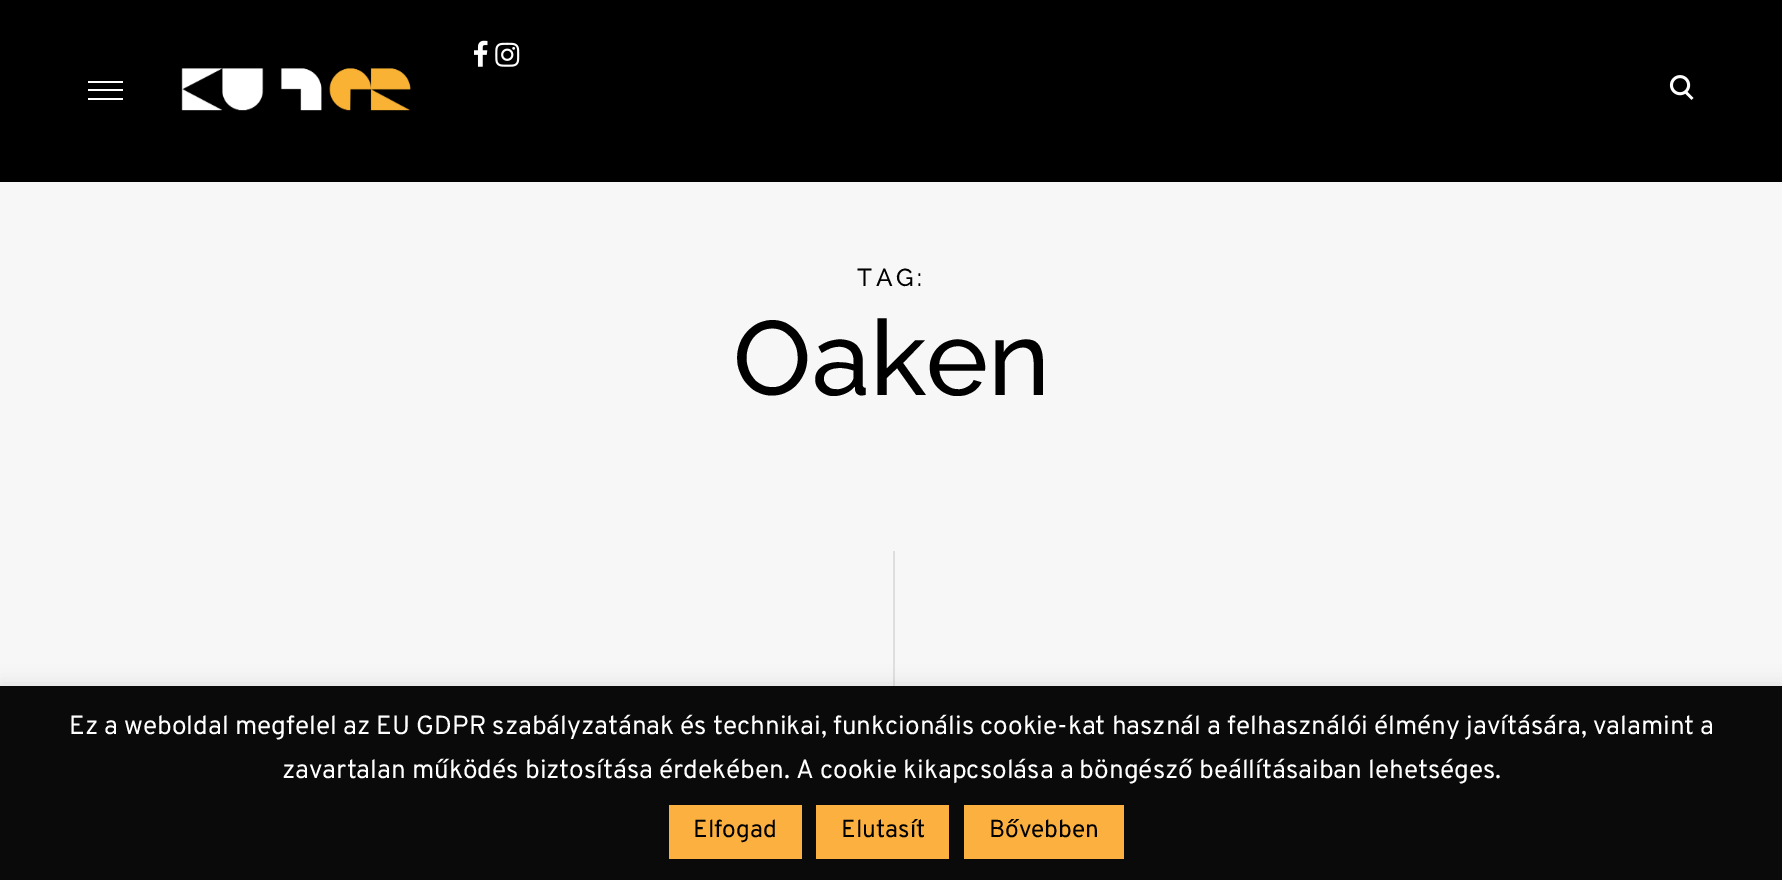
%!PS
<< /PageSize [1782 880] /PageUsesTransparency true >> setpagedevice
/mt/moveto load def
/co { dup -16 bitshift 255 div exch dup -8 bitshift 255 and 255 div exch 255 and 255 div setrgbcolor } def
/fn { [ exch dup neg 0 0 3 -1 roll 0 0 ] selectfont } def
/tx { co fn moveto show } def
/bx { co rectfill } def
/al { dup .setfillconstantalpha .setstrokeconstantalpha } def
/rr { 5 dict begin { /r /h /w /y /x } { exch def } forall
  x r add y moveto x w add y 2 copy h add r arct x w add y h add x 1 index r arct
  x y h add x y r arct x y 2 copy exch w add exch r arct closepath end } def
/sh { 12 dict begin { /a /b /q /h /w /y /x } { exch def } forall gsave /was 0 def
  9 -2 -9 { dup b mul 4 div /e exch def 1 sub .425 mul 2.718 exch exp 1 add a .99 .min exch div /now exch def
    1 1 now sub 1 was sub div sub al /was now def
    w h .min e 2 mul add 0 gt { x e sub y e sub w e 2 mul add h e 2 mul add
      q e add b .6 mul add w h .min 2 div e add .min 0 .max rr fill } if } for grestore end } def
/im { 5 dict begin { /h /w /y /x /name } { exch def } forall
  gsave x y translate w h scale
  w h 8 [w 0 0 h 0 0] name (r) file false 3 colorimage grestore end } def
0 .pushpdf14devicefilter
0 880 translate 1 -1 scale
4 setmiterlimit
0 0 1782 880 16#F7F7F7 bx
0 0 1782 182 16#000000 bx
(media/1.raw) 474 40 14 27 im
(media/2.raw) 495 42 25 25 im
88 89 35 2 16#FFFFFF bx
88 81 35 2 16#FFFFFF bx
88 98 35 2 16#FFFFFF bx
(media/3.raw) 181 68 230 43 im
(media/4.raw) 1669 75 25 25 im
893 551 2 135 16#DEDEDE bx
16#ACABAB co
0 684 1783 195 0 9 .3 sh
0 686 1782 194 16#0A0A0A bx
669 805 133 54 16#FBB040 bx
816 805 133 54 16#FBB040 bx
964 805 160 54 16#FBB040 bx
/Raleway-Medium 24.5 fn
16#000000 co
857 286 mt 3.5 0 (TAG:) ashow
(Oaken) 733 395 /Raleway-Medium 105 16#000000 tx
(Ez a weboldal megfelel az EU GDPR szabályzatának és technikai, funkcionális cookie-kat használ a felhasználói élmény javítására, valamint a) 69 734 /Overpass-Regular 26.25 16#FFFFFF tx
(zavartalan működés biztosítása érdekében. A cookie kikapcsolása a böngésző beállításaiban lehetséges.) 282 778 /Overpass-Regular 26.25 16#FFFFFF tx
(Elfogad) 693 837 /Overpass-Regular 24.5 16#000000 tx
(Elutasít) 841 837 /Overpass-Regular 24.5 16#000000 tx
(Bővebben) 989 837 /Overpass-Regular 24.5 16#000000 tx
.poppdf14devicefilter showpage
